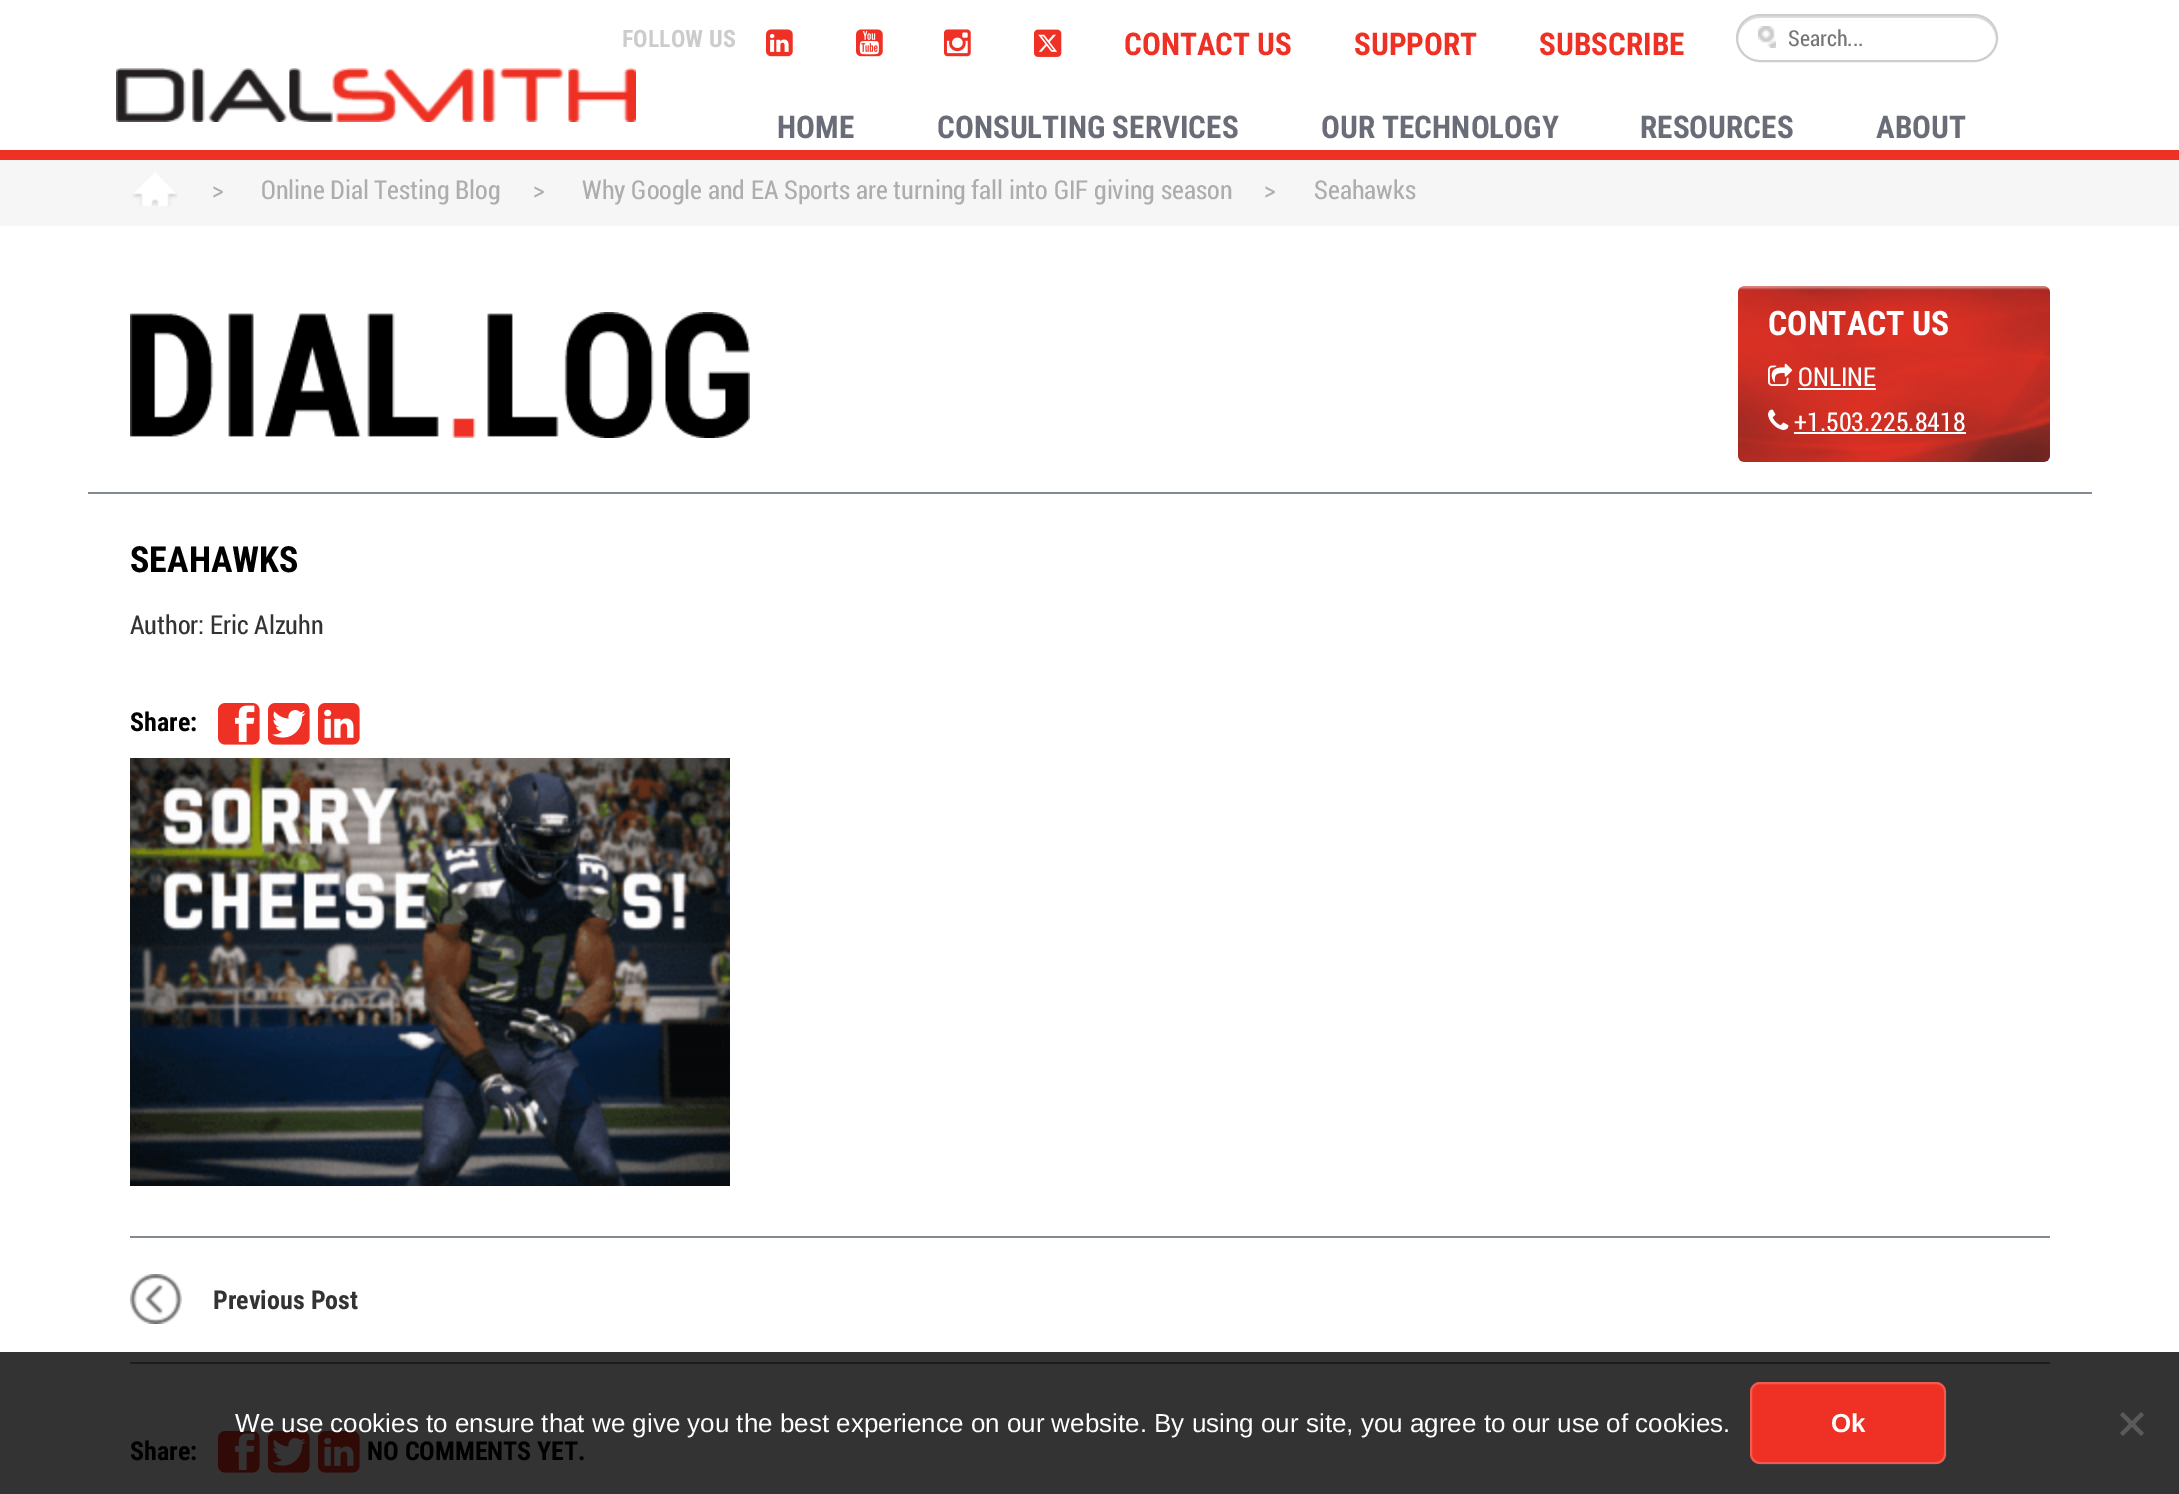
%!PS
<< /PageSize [2179 1494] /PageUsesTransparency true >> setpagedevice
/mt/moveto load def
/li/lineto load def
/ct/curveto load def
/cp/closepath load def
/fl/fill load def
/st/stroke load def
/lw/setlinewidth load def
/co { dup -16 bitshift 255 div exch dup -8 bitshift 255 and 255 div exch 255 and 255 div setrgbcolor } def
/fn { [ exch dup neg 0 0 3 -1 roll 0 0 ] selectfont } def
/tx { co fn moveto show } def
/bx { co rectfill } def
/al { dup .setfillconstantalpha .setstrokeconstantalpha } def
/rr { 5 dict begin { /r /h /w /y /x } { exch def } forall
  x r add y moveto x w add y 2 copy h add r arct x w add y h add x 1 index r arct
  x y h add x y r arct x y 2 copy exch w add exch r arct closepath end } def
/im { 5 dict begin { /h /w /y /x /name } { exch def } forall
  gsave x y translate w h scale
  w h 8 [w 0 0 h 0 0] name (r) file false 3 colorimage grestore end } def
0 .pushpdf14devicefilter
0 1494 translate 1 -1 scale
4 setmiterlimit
0 0 2179 1494 16#FFFFFF bx
0 1352 2179 142 16#333333 bx
(media/1.raw) 766 29 27 28 im
(media/2.raw) 856 29 27 28 im
(media/3.raw) 944 29 27 28 im
(media/4.raw) 1034 29 28 28 im
16#DDDDDD co
1760 18 mt 1974 18 li 1986 18 1995 27 1996 39 ct 1996 38 li 1996 26 1986 16 1974 16 ct 1760 16 li 1748 16 1738 26 1738 38 ct 1738 39 li 1739 27 1748 18 1760 18 ct cp fl
16#CDCED1 co
2 lw
1737 15 260 46 23 rr st
(media/5.raw) 1758 26 18 22 im
(media/6.raw) 116 68 520 54 im
0 160 2179 66 16#F6F6F7 bx
0 150 2179 10 16#EE3124 bx
(media/7.raw) 132 172 46 34 im
88 492 2004 2 16#848A92 bx
(media/8.raw) 130 312 620 126 im
(media/9.raw) 1738 286 312 176 im
(media/10.raw) 1768 363 25 23 im
1798 388 78 2 16#FFFFFF bx
(media/11.raw) 1768 409 21 21 im
1794 432 172 2 16#FFFFFF bx
(media/12.raw) 218 703 42 42 im
(media/13.raw) 268 703 42 42 im
(media/14.raw) 318 703 42 42 im
(media/15.raw) 130 758 600 428 im
130 1236 1920 2 16#848A92 bx
130 1362 1920 2 16#1A1C1D bx
(media/16.raw) 130 1274 52 50 im
(media/17.raw) 218 1431 42 42 im
(media/18.raw) 268 1431 42 42 im
(media/19.raw) 318 1431 42 42 im
16#EE3124 co
1750 1382 196 82 10 rr fl
0.2 al
16#FFFFFF co
1751 1383 194 80 9 rr st
1 al
16#5A5A5A co
2141 1412 mt 2144 1415 li 2123 1436 li 2120 1433 li cp fl
2120 1415 mt 2123 1412 li 2144 1433 li 2141 1436 li cp fl
(FOLLOW US) 622 47 /RobotoCondensed-Bold 24 16#CCCCCC tx
(CONTACT US) 1124 55 /RobotoCondensed-Bold 31.25 16#EE3124 tx
(SUPPORT) 1354 55 /RobotoCondensed-Bold 31.25 16#EE3124 tx
(SUBSCRIBE) 1539 55 /RobotoCondensed-Bold 31.25 16#EE3124 tx
(Search...) 1788 46 /RobotoCondensed-Regular 22 16#757575 tx
(HOME) 777 138 /RobotoCondensed-Bold 31.25 16#6A6D78 tx
(CONSULTING SERVICES) 937 138 /RobotoCondensed-Bold 31.25 16#6A6D78 tx
(OUR TECHNOLOGY) 1321 138 /RobotoCondensed-Bold 31.25 16#6A6D78 tx
(RESOURCES) 1640 138 /RobotoCondensed-Bold 31.25 16#6A6D78 tx
(ABOUT) 1876 138 /RobotoCondensed-Bold 31.25 16#6A6D78 tx
(>) 212 199 /RobotoCondensed-Regular 26 16#AEADAD tx
(Online Dial Testing Blog) 261 199 /RobotoCondensed-Regular 26 16#AEADAD tx
(>) 533 199 /RobotoCondensed-Regular 26 16#AEADAD tx
(Why Google and EA Sports are turning fall into GIF giving season) 582 199 /RobotoCondensed-Regular 26 16#AEADAD tx
(>) 1264 199 /RobotoCondensed-Regular 26 16#AEADAD tx
(Seahawks) 1314 199 /RobotoCondensed-Regular 26 16#AEADAD tx
(CONTACT US) 1768 335 /RobotoCondensed-Bold 33.75 16#FFFFFF tx
(ONLINE) 1798 386 /RobotoCondensed-Regular 26 16#FFFFFF tx
(+1.503.225.8418) 1794 431 /RobotoCondensed-Regular 26 16#FFFFFF tx
(SEAHAWKS) 130 572 /RobotoCondensed-Bold 36 16#000000 tx
(Author: Eric Alzuhn) 130 634 /RobotoCondensed-Regular 26 16#333333 tx
(Share:) 130 731 /RobotoCondensed-Bold 26 16#000000 tx
(Previous Post) 213 1309 /RobotoCondensed-Bold 26 16#333333 tx
(Share:) 130 1460 /RobotoCondensed-Bold 26 16#000000 tx
(NO COMMENTS YET.) 367 1460 /RobotoCondensed-Bold 26 16#000000 tx
(We use cookies to ensure that we give you the best experience on our website. By using our site, you agree to our use of cookies.) 235 1432 /LiberationSans-Regular 26 16#FFFFFF tx
(Ok) 1831 1432 /LiberationSans-Bold 26 16#FFFFFF tx
.poppdf14devicefilter showpage
